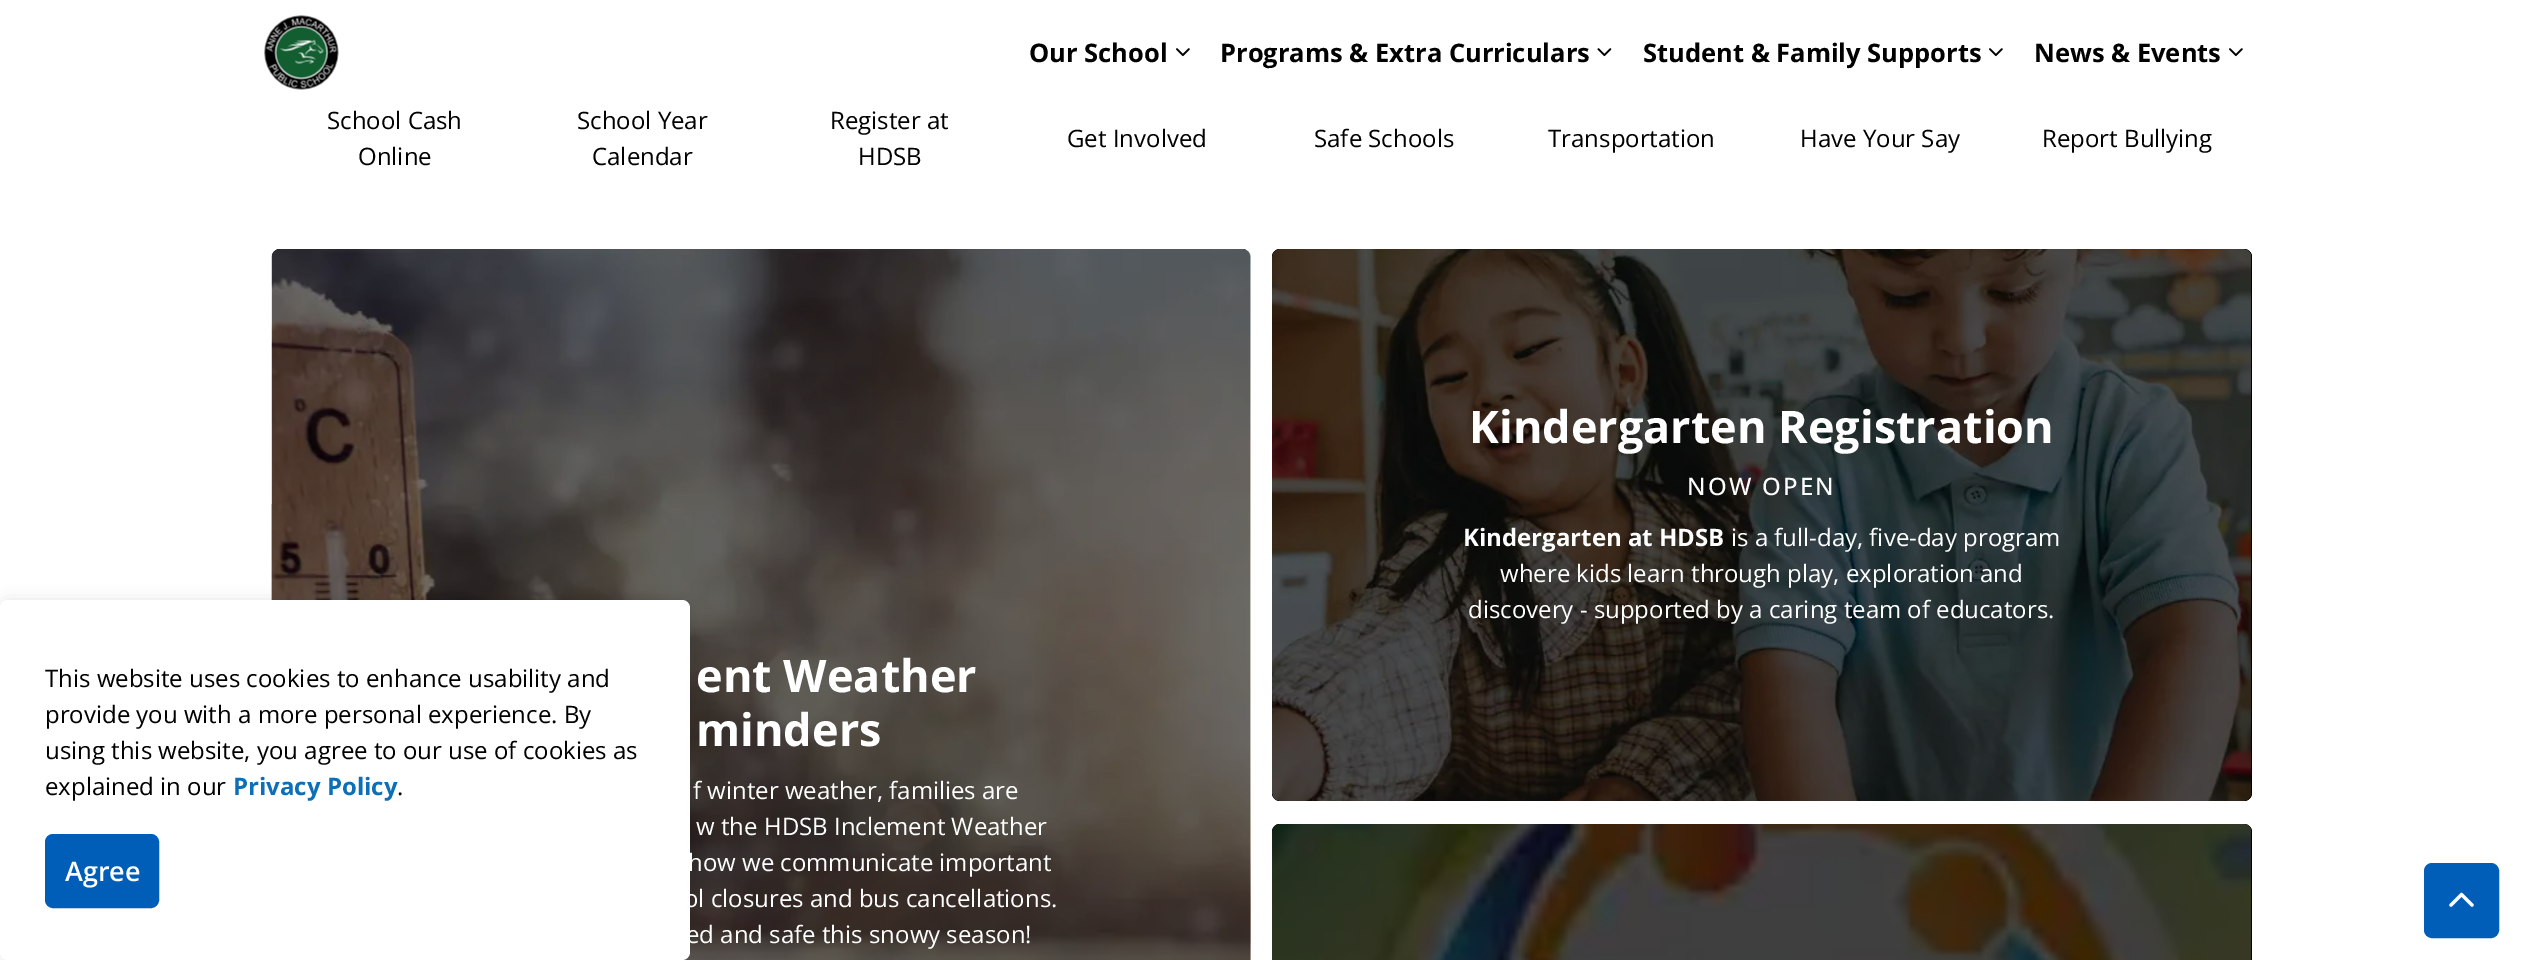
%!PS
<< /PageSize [2521 960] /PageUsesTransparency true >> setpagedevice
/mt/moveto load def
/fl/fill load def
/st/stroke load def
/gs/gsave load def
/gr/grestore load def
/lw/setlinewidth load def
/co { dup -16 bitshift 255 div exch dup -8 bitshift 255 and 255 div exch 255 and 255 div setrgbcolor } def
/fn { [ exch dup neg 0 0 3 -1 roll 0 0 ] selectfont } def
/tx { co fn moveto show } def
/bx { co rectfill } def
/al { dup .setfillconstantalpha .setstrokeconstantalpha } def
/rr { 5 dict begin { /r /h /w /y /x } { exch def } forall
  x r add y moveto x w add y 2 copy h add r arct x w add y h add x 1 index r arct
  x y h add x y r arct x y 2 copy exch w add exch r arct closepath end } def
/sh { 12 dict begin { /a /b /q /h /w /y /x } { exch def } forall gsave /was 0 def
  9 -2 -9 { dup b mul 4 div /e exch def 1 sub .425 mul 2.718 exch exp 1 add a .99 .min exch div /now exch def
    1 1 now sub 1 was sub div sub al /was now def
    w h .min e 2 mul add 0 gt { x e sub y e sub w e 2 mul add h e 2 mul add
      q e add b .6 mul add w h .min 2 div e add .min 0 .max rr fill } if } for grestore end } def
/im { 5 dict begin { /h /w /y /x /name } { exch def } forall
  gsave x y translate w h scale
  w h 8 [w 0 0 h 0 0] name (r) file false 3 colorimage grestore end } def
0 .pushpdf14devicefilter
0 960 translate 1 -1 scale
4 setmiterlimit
0 0 2521 960 16#FFFFFF bx
(media/1.raw) 264 15 75 75 im
(media/2.raw) 1176 48 14 9 im
(media/3.raw) 1597 48 15 9 im
(media/2.raw) 1989 48 14 9 im
(media/2.raw) 2229 48 14 9 im
16#000000 co
1272 249 980 552 8 rr fl
(media/4.raw) 1272 249 980 552 im
0.4 al
1272 249 980 552 8 rr fl
1 al
272 249 978 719 8 rr fl
(media/5.raw) 271 249 980 711 im
0.4 al
272 249 978 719 8 rr fl
1 al
1272 824 980 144 8 rr fl
(media/6.raw) 1272 824 980 136 im
0.4 al
1272 824 980 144 8 rr fl
1 al
16#005EB8 co
2425 864 73 73 7 rr gs fl gr
2 lw
st
(media/7.raw) 2449 892 25 15 im
16#000000 co
0 600 690 360 8 7.5 .1 sh
16#FFFFFF co
0 600 690 360 8 rr fl
16#005EB8 co
46 835 112 72 7 rr gs fl gr
st
(Our School) 1029 62 /OpenSans-Bold 25.5 16#000000 tx
(Programs & Extra Curriculars) 1220 62 /OpenSans-Bold 25.5 16#000000 tx
(Student & Family Supports) 1643 62 /OpenSans-Bold 25.5 16#000000 tx
(News & Events) 2034 62 /OpenSans-Bold 25.5 16#000000 tx
(School Cash) 327 129 /OpenSans-Regular 24 16#000000 tx
(Online) 358 165 /OpenSans-Regular 24 16#000000 tx
(School Year) 577 129 /OpenSans-Regular 24 16#000000 tx
(Calendar) 592 165 /OpenSans-Regular 24 16#000000 tx
(Register at) 830 129 /OpenSans-Regular 24 16#000000 tx
(HDSB) 858 165 /OpenSans-Regular 24 16#000000 tx
(Get Involved) 1067 147 /OpenSans-Regular 24 16#000000 tx
(Safe Schools) 1314 147 /OpenSans-Regular 24 16#000000 tx
(Transportation) 1548 147 /OpenSans-Regular 24 16#000000 tx
(Have Your Say) 1800 147 /OpenSans-Regular 24 16#000000 tx
(Report Bullying) 2042 147 /OpenSans-Regular 24 16#000000 tx
(Kindergarten Registration) 1469 443 /OpenSans-Bold 45 16#FFFFFF tx
/OpenSans-Medium 24 fn
1687 495 mt 2.25 0 (NOW OPEN) ashow
(Kindergarten at HDSB) 1463 546 /OpenSans-Bold 24 16#FFFFFF tx
(is a full-day, five-day program) 1731 546 /OpenSans-Regular 24 16#FFFFFF tx
(where kids learn through play, exploration and) 1500 582 /OpenSans-Regular 24 16#FFFFFF tx
(discovery - supported by a caring team of educators.) 1468 618 /OpenSans-Regular 24 16#FFFFFF tx
(ent Weather) 696 692 /OpenSans-Bold 45 16#FFFFFF tx
(minders) 696 746 /OpenSans-Bold 45 16#FFFFFF tx
(f winter weather, families are) 693 799 /OpenSans-Regular 24 16#FFFFFF tx
(w the HDSB Inclement Weather) 696 835 /OpenSans-Regular 24 16#FFFFFF tx
(how we communicate important) 688 871 /OpenSans-Regular 24 16#FFFFFF tx
(ol closures and bus cancellations.) 684 907 /OpenSans-Regular 24 16#FFFFFF tx
(ed and safe this snowy season!) 686 943 /OpenSans-Regular 24 16#FFFFFF tx
(This website uses cookies to enhance usability and) 45 687 /OpenSans-Regular 24 16#000000 tx
(provide you with a more personal experience. By) 45 723 /OpenSans-Regular 24 16#000000 tx
(using this website, you agree to our use of cookies as) 45 759 /OpenSans-Regular 24 16#000000 tx
(explained in our) 45 795 /OpenSans-Regular 24 16#000000 tx
(Privacy Policy) 233 795 /OpenSans-Bold 24 16#0E6FB9 tx
(.) 397 795 /OpenSans-Regular 24 16#000000 tx
(Agree) 65 881 /OpenSans-SemiBold 27 16#FFFFFF tx
.poppdf14devicefilter showpage
